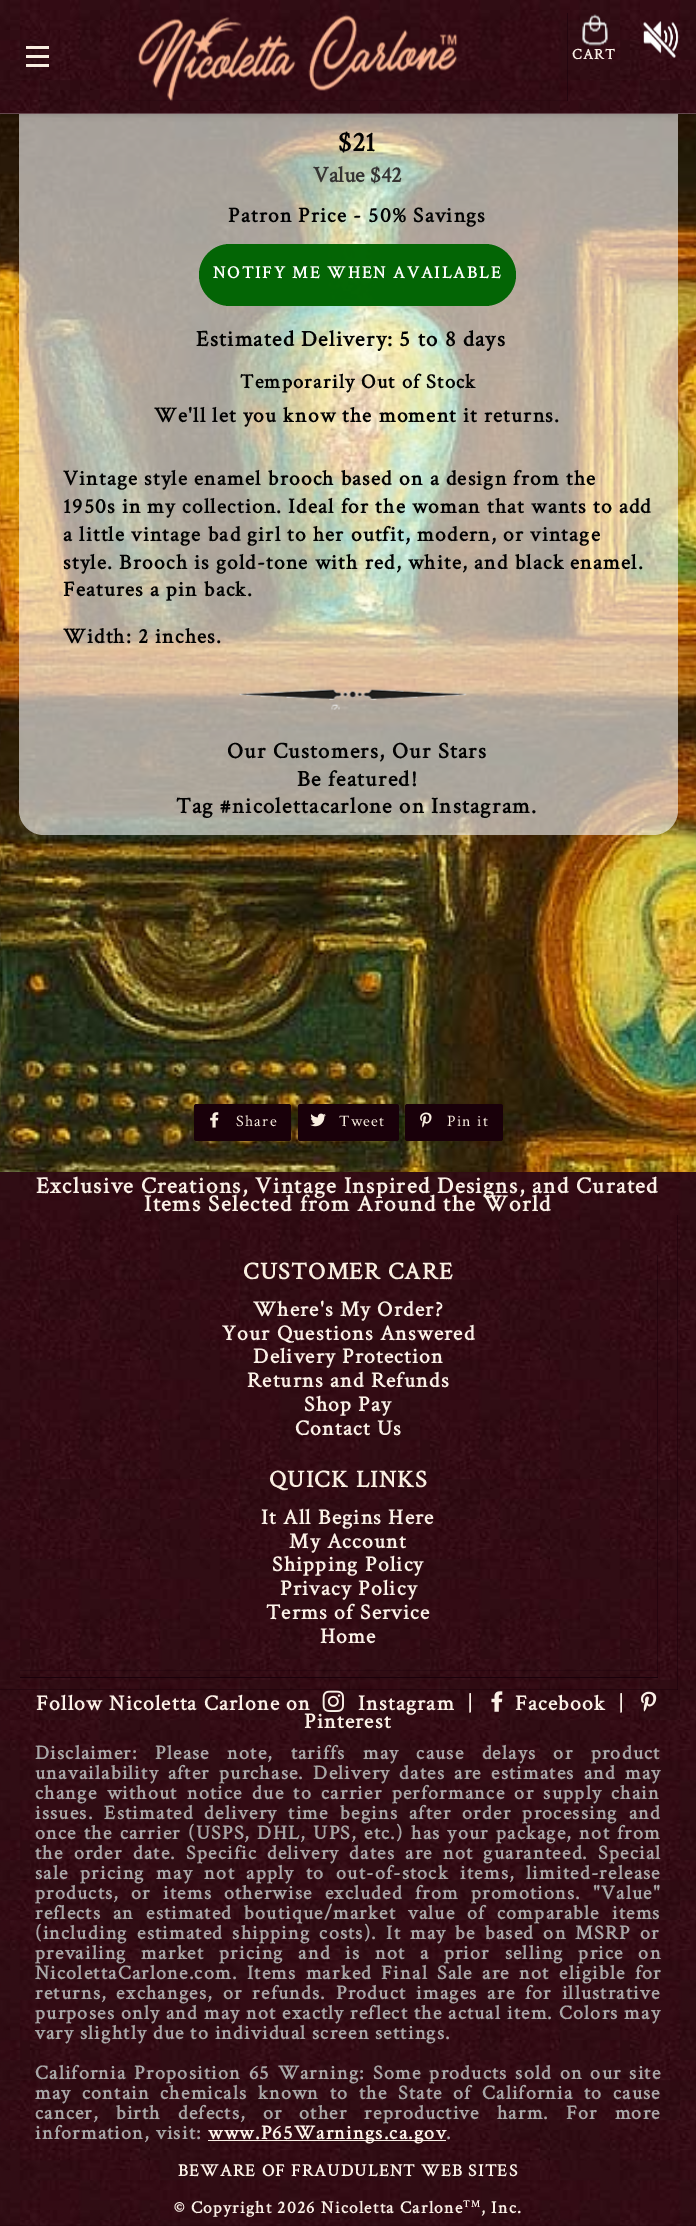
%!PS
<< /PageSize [696 2226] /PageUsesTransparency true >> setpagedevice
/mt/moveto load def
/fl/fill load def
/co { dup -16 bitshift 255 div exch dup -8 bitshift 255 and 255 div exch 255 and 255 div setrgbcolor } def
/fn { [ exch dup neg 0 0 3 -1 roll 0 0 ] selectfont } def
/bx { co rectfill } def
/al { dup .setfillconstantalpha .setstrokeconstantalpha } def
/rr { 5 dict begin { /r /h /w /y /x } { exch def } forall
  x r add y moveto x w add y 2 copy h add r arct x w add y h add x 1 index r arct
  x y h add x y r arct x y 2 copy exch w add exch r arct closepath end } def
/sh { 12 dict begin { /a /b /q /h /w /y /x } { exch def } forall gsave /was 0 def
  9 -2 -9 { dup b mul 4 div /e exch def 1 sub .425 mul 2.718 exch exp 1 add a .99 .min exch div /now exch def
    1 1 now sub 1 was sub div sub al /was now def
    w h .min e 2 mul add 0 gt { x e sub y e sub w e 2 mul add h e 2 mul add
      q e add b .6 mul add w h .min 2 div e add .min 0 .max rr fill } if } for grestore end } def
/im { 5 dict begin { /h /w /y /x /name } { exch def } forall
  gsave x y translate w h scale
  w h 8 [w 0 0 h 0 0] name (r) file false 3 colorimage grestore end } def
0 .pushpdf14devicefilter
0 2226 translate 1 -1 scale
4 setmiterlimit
0 0 696 2226 16#FFFFFF bx
(media/1.raw) 0 113 696 2113 im
0.6 al
19 -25 659 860 25 rr fl
1 al
16#000000 co
0 3 696 113 0 2.5 .1 sh
(media/2.raw) 0 0 696 114 im
26 46 23 3 16#F9EEE0 bx
26 55 23 3 16#F9EEE0 bx
26 64 23 3 16#F9EEE0 bx
129 13 439 88 16#19000A bx
(media/3.raw) 129 13 439 88 im
(media/4.raw) 138 14 320 88 im
(media/5.raw) 582 14 26 32 im
(media/6.raw) 643 21 36 37 im
0.99 al
16#016403 co
199 244 317 62 31 rr fl
1 al
(media/7.raw) 239 689 228 21 im
16#19000A co
194 1104 97 37 2.5 rr fl
(media/8.raw) 210 1112 9 16 im
298 1104 101 37 2.5 rr fl
(media/9.raw) 310 1113 16 14 im
405 1104 98 37 2.5 rr fl
(media/10.raw) 420 1112 12 16 im
(media/11.raw) 0 1172 696 1054 im
(media/12.raw) 0 2225 696 1 im
(media/13.raw) 0 1173 696 1053 im
0 1215 678 475 16#19000A bx
(media/14.raw) 0 1215 678 475 im
657 1255 1 208 16#19000A bx
(media/15.raw) 20 1255 638 207 im
20 1463 638 215 16#19000A bx
(media/16.raw) 20 1462 638 209 im
(media/17.raw) 20 1671 638 6 im
(media/18.raw) 322 1690 22 22 im
(media/19.raw) 491 1691 12 21 im
(media/20.raw) 641 1691 16 21 im
208 2140 238 1 16#FAF0E6 bx
/CrimsonText-Bold 15 fn
572 59 mt 1.25 0 (CART) ashow
/CrimsonText-Bold 28 fn
16#020202 co
338 151 mt .1 0 ($21) ashow
/CrimsonText-Bold 22.5 fn
16#353433 co
313 182 mt .1 0 (Value $42) ashow
/CrimsonText-Bold 21.4 fn
16#020202 co
228 222 mt 1.25 0 (Patron Price - 50% Savings) ashow
/CrimsonText-Bold 17.5 fn
16#FCFDFC co
213 278 mt 1.9 0 (NOTIFY ME WHEN AVAILABLE) ashow
/CrimsonText-Bold 22.5 fn
16#020202 co
196 346 mt 1.25 0 (Estimated Delivery: 5 to 8 days) ashow
/CrimsonText-Bold 20.4 fn
240 388 mt 1.25 0 (Temporarily Out of Stock) ashow
/CrimsonText-Bold 21.4 fn
154 422 mt 1.25 0 (We'll let you know the moment it returns.) ashow
63 485 mt 1.25 0 (Vintage style enamel brooch based on a design from the) ashow
63 513 mt 1.25 0 (1950s in my collection. Ideal for the woman that wants to add) ashow
63 541 mt 1.25 0 (a little vintage bad girl to her outfit, modern, or vintage) ashow
63 569 mt 1.25 0 (style. Brooch is gold-tone with red, white, and black enamel.) ashow
63 596 mt 1.25 0 (Features a pin back.) ashow
63 643 mt 1.25 0 (Width: 2 inches.) ashow
/CrimsonText-Bold 22.5 fn
227 758 mt 1.25 0 (Our Customers, Our Stars) ashow
297 786 mt 1.25 0 (Be featured!) ashow
176 813 mt 1.25 0 (Tag #nicolettacarlone on Instagram.) ashow
/CrimsonText-Regular 16 fn
16#F9EEE0 co
236 1126 mt 1.25 0 (Share) ashow
339 1126 mt 1.25 0 (Tweet) ashow
447 1126 mt 1.25 0 (Pin it) ashow
/CrimsonText-Bold 23.3 fn
16#FAF0E6 co
36 1193 mt 1.38 0 (Exclusive Creations, Vintage Inspired Designs, and Curated) ashow
144 1211 mt 1.38 0 (Items Selected from Around the World) ashow
/CrimsonText-Bold 24.25 fn
16#F9EEE0 co
243 1279 mt 1.25 0 (CUSTOMER CARE) ashow
/CrimsonText-Bold 21.7 fn
16#FAF0E6 co
253 1316 mt 1.25 0 (Where's My Order?) ashow
222 1340 mt 1.25 0 (Your Questions Answered) ashow
253 1363 mt 1.25 0 (Delivery Protection) ashow
247 1387 mt 1.25 0 (Returns and Refunds) ashow
304 1411 mt 1.25 0 (Shop Pay) ashow
295 1435 mt 1.25 0 (Contact Us) ashow
/CrimsonText-Bold 24.25 fn
16#F9EEE0 co
269 1487 mt 1.25 0 (QUICK LINKS) ashow
/CrimsonText-Bold 21.7 fn
16#FAF0E6 co
261 1524 mt 1.25 0 (It All Begins Here) ashow
289 1548 mt 1.25 0 (My Account) ashow
272 1571 mt 1.25 0 (Shipping Policy) ashow
280 1595 mt 1.25 0 (Privacy Policy) ashow
266 1619 mt 1.25 0 (Terms of Service) ashow
320 1643 mt 1.25 0 (Home) ashow
36 1710 mt 1.25 0 (Follow Nicoletta Carlone on) ashow
358 1710 mt 1.25 0 (Instagram) ashow
467 1710 mt 1.25 0 (|) ashow
515 1710 mt 1.25 0 (Facebook) ashow
618 1710 mt 1.25 0 (|) ashow
304 1728 mt 1.25 0 (Pinterest) ashow
/CrimsonText-Bold 20 fn
16#A8A7A7 co
35 1759 mt 1.25 0 (Disclaimer:) ashow
155 1759 mt 11.5 0 32 1.25 0 (Please note, tariffs may cause delays or product) awidthshow
35 1779 mt 3.25 0 32 1.25 0 (unavailability after purchase. Delivery dates are estimates and may) awidthshow
35 1799 mt 3.5 0 32 1.25 0 (change without notice due to carrier performance or supply chain) awidthshow
35 1819 mt 5.25 0 32 1.25 0 (issues. Estimated delivery time begins after order processing and) awidthshow
35 1839 mt 1.4 0 32 1.25 0 (once the carrier \(USPS, DHL, UPS, etc.\) has your package, not from) awidthshow
35 1859 mt 4.25 0 32 1.25 0 (the order date. Specific delivery dates are not guaranteed. Special) awidthshow
35 1879 mt 5.75 0 32 1.25 0 (sale pricing may not apply to out-of-stock items, limited-release) awidthshow
35 1899 mt 6.25 0 32 1.25 0 (products, or items otherwise excluded from promotions.) awidthshow
593 1899 mt 1.25 0 ("Value") ashow
35 1919 mt 6 0 32 1.25 0 (reflects an estimated boutique/market value of comparable items) awidthshow
35 1939 mt 3.25 0 32 1.25 0 (\(including estimated shipping costs\). It may be based on MSRP or) awidthshow
35 1959 mt 8.75 0 32 1.25 0 (prevailing market pricing and is not a prior selling price on) awidthshow
35 1979 mt 3.5 0 32 1.25 0 (NicolettaCarlone.com. Items marked Final Sale are not eligible for) awidthshow
35 1999 mt 4 0 32 1.25 0 (returns, exchanges, or refunds. Product images are for illustrative) awidthshow
35 2019 mt 1.25 0 (purposes only and may not exactly reflect the actual item. Colors may) ashow
35 2039 mt 1.25 0 (vary slightly due to individual screen settings.) ashow
35 2079 mt 2 0 32 1.25 0 (California Proposition 65 Warning:) awidthshow
373 2079 mt 2 0 32 1.25 0 (Some products sold on our site) awidthshow
35 2099 mt 4.75 0 32 1.25 0 (may contain chemicals known to the State of California to cause) awidthshow
35 2119 mt 11 0 32 1.25 0 (cancer, birth defects, or other reproductive harm. For more) awidthshow
35 2139 mt 1.25 0 (information, visit:) ashow
16#FAF0E6 co
208 2139 mt 1.25 0 (www.P65Warnings.ca.gov) ashow
16#A8A7A7 co
446 2139 mt 1.25 0 (.) ashow
/CrimsonText-Bold 17.5 fn
16#FAF0E6 co
178 2176 mt 1.25 0 (BEWARE OF FRAUDULENT WEB SITES) ashow
174 2213 mt 1.25 0 (© Copyright 2026 Nicoletta Carlone) ashow
/CrimsonText-Bold 10 fn
463 2207 mt 1.25 0 (TM) ashow
/CrimsonText-Bold 17.5 fn
481 2213 mt 1.25 0 (, Inc.) ashow
.poppdf14devicefilter showpage
